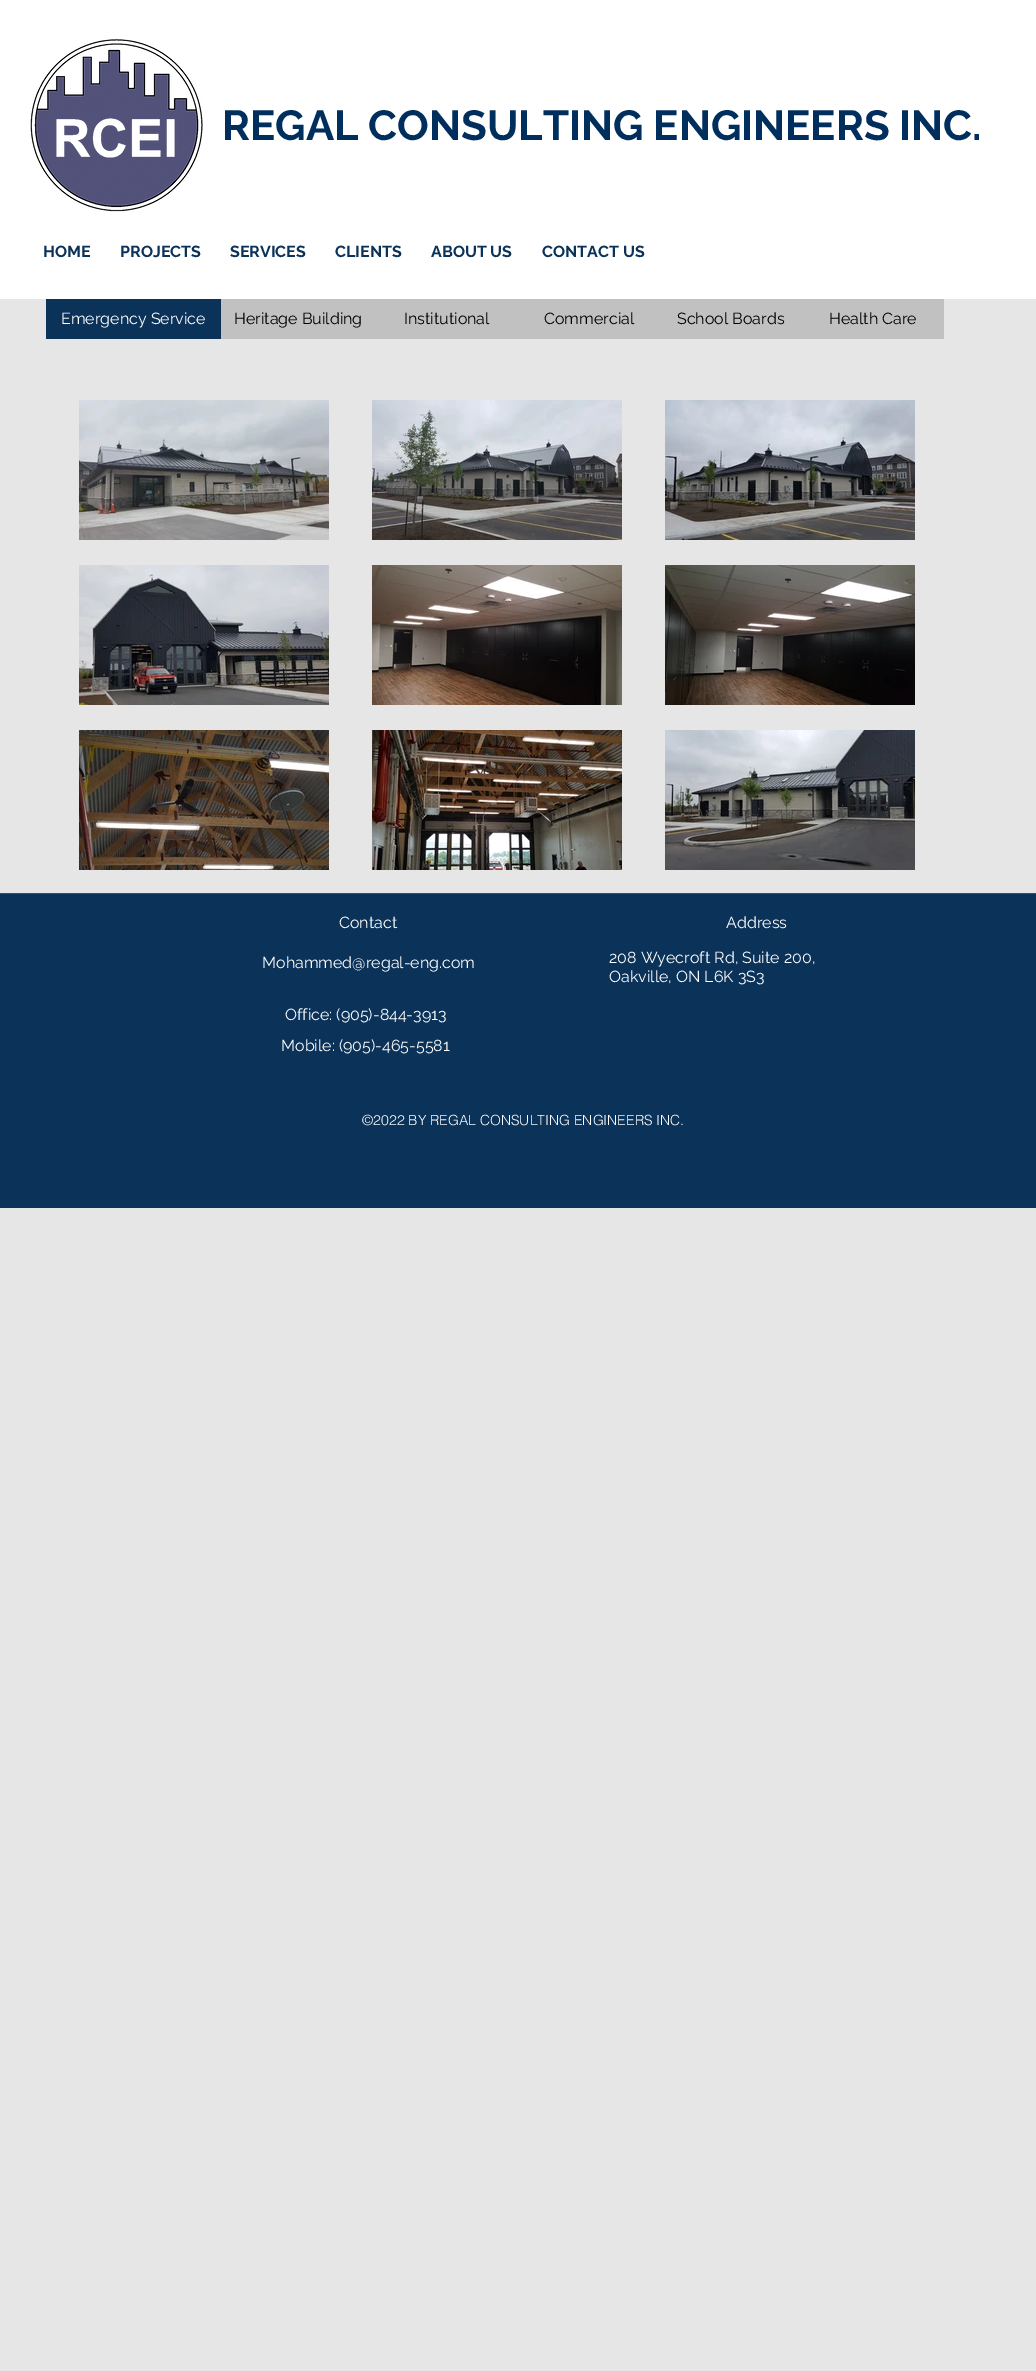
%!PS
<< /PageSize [1036 2371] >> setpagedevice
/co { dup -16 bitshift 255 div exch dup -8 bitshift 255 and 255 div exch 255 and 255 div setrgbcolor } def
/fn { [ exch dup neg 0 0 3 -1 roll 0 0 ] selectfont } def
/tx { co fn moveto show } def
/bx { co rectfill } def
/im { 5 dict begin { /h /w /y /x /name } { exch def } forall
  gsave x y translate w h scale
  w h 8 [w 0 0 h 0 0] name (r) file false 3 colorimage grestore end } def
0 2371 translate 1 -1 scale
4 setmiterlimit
0 0 1036 2371 16#E6E6E6 bx
0 0 1036 299 16#FFFFFF bx
(media/1.raw) 30 39 173 173 im
46 299 175 40 16#0B3259 bx
221 299 723 40 16#C1C1C1 bx
(media/2.raw) 79 400 250 140 im
(media/3.raw) 372 400 250 140 im
(media/4.raw) 665 400 250 140 im
(media/5.raw) 79 565 250 140 im
(media/6.raw) 372 565 250 140 im
(media/7.raw) 665 565 250 140 im
(media/8.raw) 79 730 250 140 im
(media/9.raw) 372 730 250 140 im
(media/10.raw) 665 730 250 140 im
0 894 1036 314 16#0B3259 bx
0 893 1036 1 16#305172 bx
(REGAL CONSULTING ENGINEERS INC.) 222 140 /Raleway-Bold 42 16#002E5D tx
(HOME) 43 257 /Raleway-Bold 16 16#0B3259 tx
(PROJECTS) 120 257 /Raleway-Bold 16 16#0B3259 tx
(SERVICES) 230 257 /Raleway-Bold 16 16#0B3259 tx
(CLIENTS) 335 257 /Raleway-Bold 16 16#0B3259 tx
(ABOUT US) 431 257 /Raleway-Bold 16 16#0B3259 tx
(CONTACT US) 542 257 /Raleway-Bold 16 16#0B3259 tx
(Emergency Service) 61 324 /Raleway-Regular 16 16#FFFFFF tx
(Heritage Building) 234 324 /Raleway-Regular 16 16#000000 tx
(Institutional) 404 324 /Raleway-Regular 16 16#000000 tx
(Commercial) 544 324 /Raleway-Regular 16 16#000000 tx
(School Boards) 677 324 /Raleway-Regular 16 16#000000 tx
(Health Care) 829 324 /Raleway-Regular 16 16#000000 tx
(Contact) 339 928 /Raleway-Regular 16 16#FFFFFF tx
(Address) 726 928 /Raleway-Regular 16 16#FFFFFF tx
(Mohammed@regal-eng.com) 262 968 /Raleway-Regular 16 16#FFFFFF tx
(208 Wyecroft Rd, Suite 200,) 609 963 /Raleway-Regular 16 16#FFFFFF tx
(Oakville, ON L6K 3S3) 609 982 /Raleway-Regular 16 16#FFFFFF tx
(Office: \(905\)-844-3913) 285 1020 /Raleway-Regular 16 16#FFFFFF tx
(Mobile: \(905\)-465-5581) 281 1051 /Raleway-Regular 16 16#FFFFFF tx
(©2022 BY REGAL CONSULTING ENGINEERS INC.) 362 1125 /helvetica-Light 14 16#FFFFFF tx
showpage
